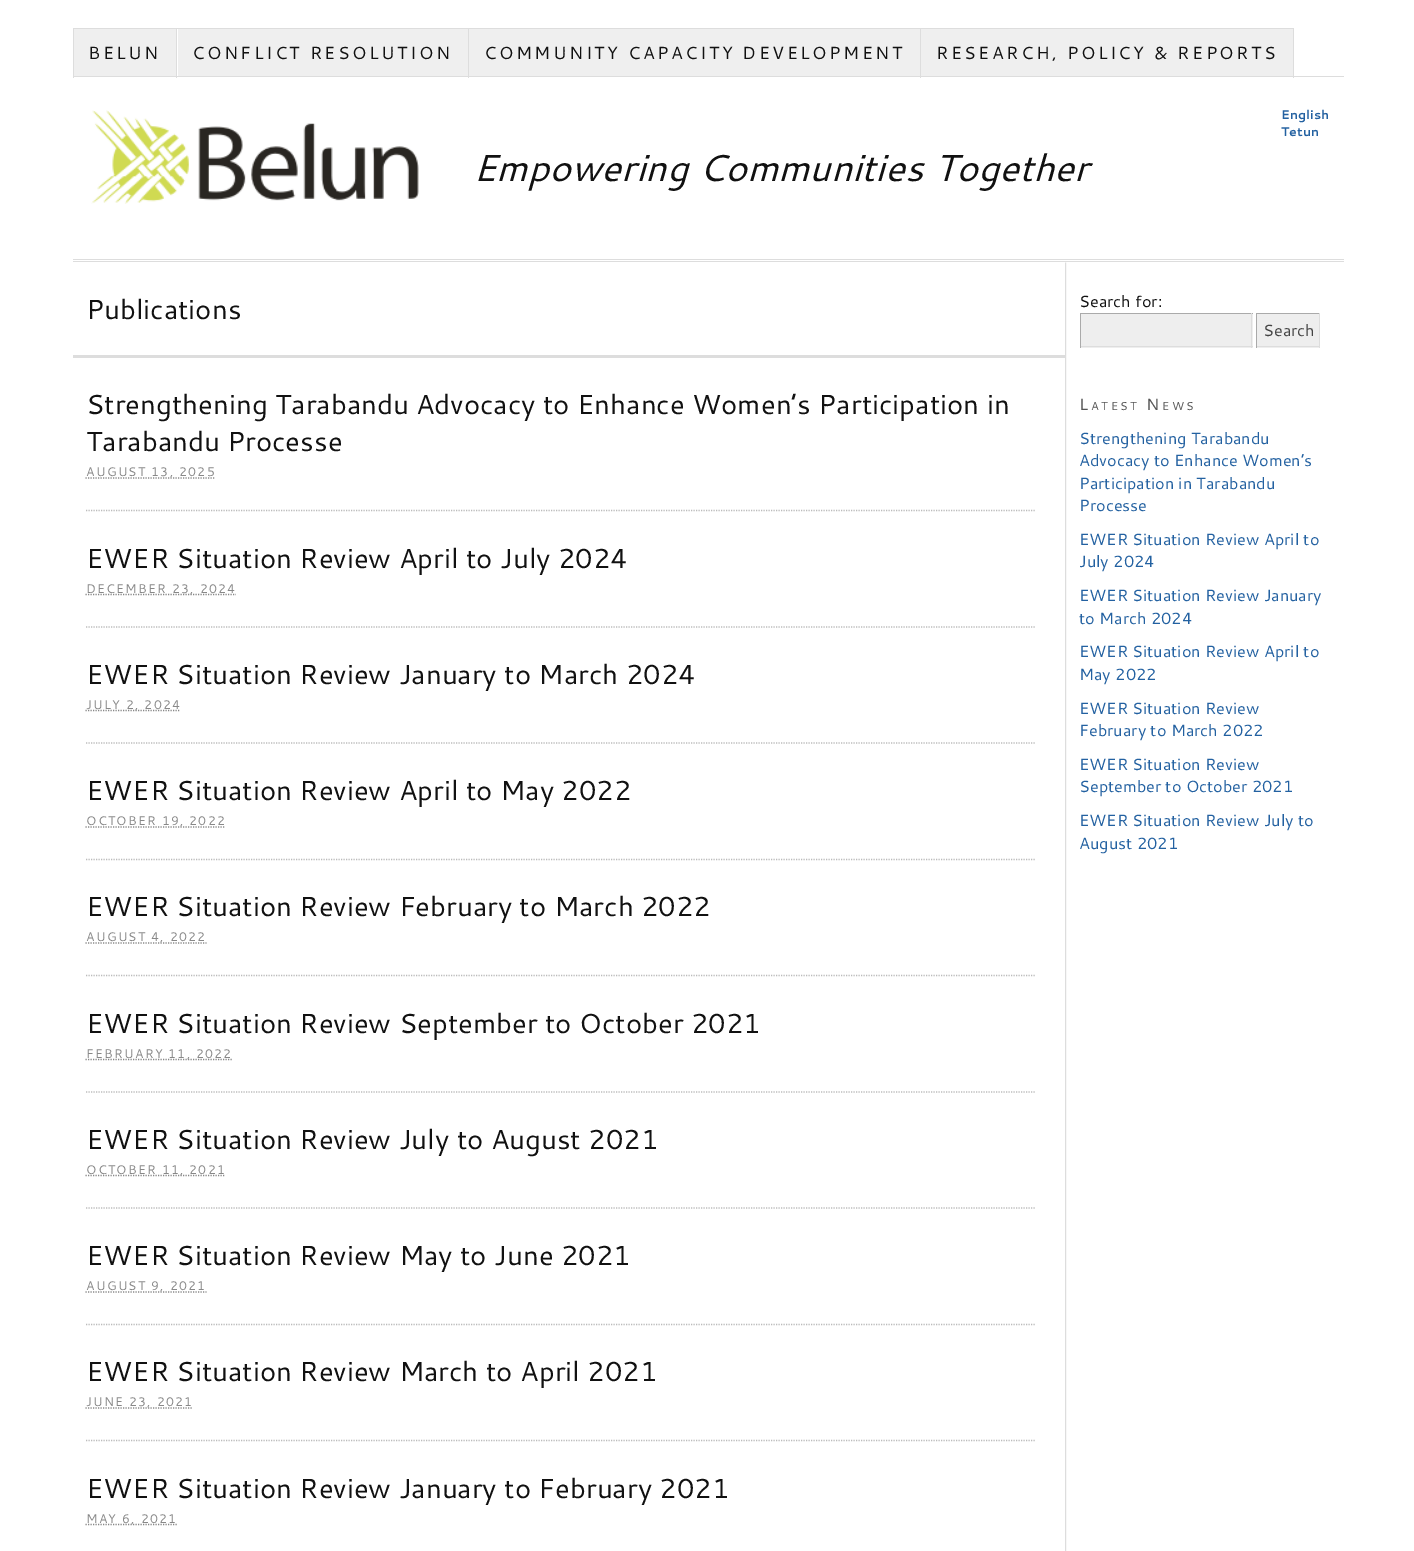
%!PS
<< /PageSize [1414 1551] >> setpagedevice
/mt/moveto load def
/li/lineto load def
/st/stroke load def
/lw/setlinewidth load def
/co { dup -16 bitshift 255 div exch dup -8 bitshift 255 and 255 div exch 255 and 255 div setrgbcolor } def
/fn { [ exch dup neg 0 0 3 -1 roll 0 0 ] selectfont } def
/tx { co fn moveto show } def
/bx { co rectfill } def
/im { 5 dict begin { /h /w /y /x /name } { exch def } forall
  gsave x y translate w h scale
  w h 8 [w 0 0 h 0 0] name (r) file false 3 colorimage grestore end } def
0 1551 translate 1 -1 scale
4 setmiterlimit
0 0 1414 1551 16#FFFFFF bx
73 76 1271 1 16#DDDDDD bx
73 28 1 50 16#DDDDDD bx
74 29 102 47 16#EFEFEF bx
74 28 1220 1 16#DDDDDD bx
176 28 1 50 16#DDDDDD bx
178 29 290 47 16#EFEFEF bx
468 28 1 50 16#DDDDDD bx
469 29 451 47 16#EFEFEF bx
920 28 1 50 16#DDDDDD bx
921 29 372 47 16#EFEFEF bx
1293 28 1 50 16#DDDDDD bx
73 259 1271 1 16#DDDDDD bx
73 261 1271 1 16#DDDDDD bx
(media/1.raw) 91 110 328 94 im
(media/2.raw) 1065 262 2 1289 im
73 355 992 3 16#DDDDDD bx
16#888888 co
1.2 lw
[1.25 1.25] 0 setdash
85.5 478 mt 215.5 478 li st
16#BBBBBB co
86 510.5 mt 1036 510.5 li st
16#888888 co
85.5 594.5 mt 236 594.5 li st
16#BBBBBB co
86 627 mt 1036 627 li st
16#888888 co
85.5 710.5 mt 180.5 710.5 li st
16#BBBBBB co
86 743 mt 1036 743 li st
16#888888 co
85.5 827 mt 225.5 827 li st
16#BBBBBB co
86 859.5 mt 1036 859.5 li st
16#888888 co
85.5 943 mt 206.5 943 li st
16#BBBBBB co
86 975.5 mt 1036 975.5 li st
16#888888 co
85.5 1059.5 mt 232.5 1059.5 li st
16#BBBBBB co
86 1092 mt 1036 1092 li st
16#888888 co
85.5 1175.5 mt 225.5 1175.5 li st
16#BBBBBB co
86 1208 mt 1036 1208 li st
16#888888 co
85.5 1292 mt 206.5 1292 li st
16#BBBBBB co
86 1324.5 mt 1036 1324.5 li st
16#888888 co
85.5 1408 mt 193 1408 li st
16#BBBBBB co
86 1440.5 mt 1036 1440.5 li st
16#888888 co
85.5 1524.5 mt 177 1524.5 li st
1081 314 172 34 16#EEEEEE bx
1080 313 173 1 16#AAAAAA bx
1251 313 1 35 16#DDDDDD bx
1080 346 173 1 16#DDDDDD bx
1080 313 1 35 16#AAAAAA bx
1257 314 62 34 16#EEEEEE bx
1256 313 64 1 16#AAAAAA bx
1319 313 1 35 16#DDDDDD bx
1256 346 64 1 16#DDDDDD bx
1256 313 1 35 16#AAAAAA bx
/Cantarell-Regular 17.5 fn
16#111111 co
88 59 mt 2.5 0 (BELUN) ashow
192 59 mt 2.5 0 (CONFLICT RESOLUTION) ashow
484 59 mt 2.5 0 (COMMUNITY CAPACITY DEVELOPMENT) ashow
936 59 mt 2.5 0 (RESEARCH, POLICY & REPORTS) ashow
(Empowering Communities Together) 473 181 /Cantarell-Italic 37.5 16#111111 tx
(English) 1281 119 /Cantarell-Bold 12.5 16#2361A1 tx
(Tetun) 1281 136 /Cantarell-Bold 12.5 16#2361A1 tx
(Publications) 86 319 /Cantarell-Regular 27.5 16#111111 tx
(Strengthening Tarabandu Advocacy to Enhance Women’s Participation in) 86 414 /Cantarell-Regular 27.5 16#111111 tx
(Tarabandu Processe) 86 451 /Cantarell-Regular 27.5 16#111111 tx
/Cantarell-Regular 12.5 fn
16#888888 co
86 476 mt 1.25 0 (AUGUST 13, 2025) ashow
(EWER Situation Review April to July 2024) 86 568 /Cantarell-Regular 27.5 16#111111 tx
/Cantarell-Regular 12.5 fn
16#888888 co
86 593 mt 1.25 0 (DECEMBER 23, 2024) ashow
(EWER Situation Review January to March 2024) 86 684 /Cantarell-Regular 27.5 16#111111 tx
/Cantarell-Regular 12.5 fn
16#888888 co
86 709 mt 1.25 0 (JULY 2, 2024) ashow
(EWER Situation Review April to May 2022) 86 800 /Cantarell-Regular 27.5 16#111111 tx
/Cantarell-Regular 12.5 fn
16#888888 co
86 825 mt 1.25 0 (OCTOBER 19, 2022) ashow
(EWER Situation Review February to March 2022) 86 916 /Cantarell-Regular 27.5 16#111111 tx
/Cantarell-Regular 12.5 fn
16#888888 co
86 941 mt 1.25 0 (AUGUST 4, 2022) ashow
(EWER Situation Review September to October 2021) 86 1033 /Cantarell-Regular 27.5 16#111111 tx
/Cantarell-Regular 12.5 fn
16#888888 co
86 1058 mt 1.25 0 (FEBRUARY 11, 2022) ashow
(EWER Situation Review July to August 2021) 86 1149 /Cantarell-Regular 27.5 16#111111 tx
/Cantarell-Regular 12.5 fn
16#888888 co
86 1174 mt 1.25 0 (OCTOBER 11, 2021) ashow
(EWER Situation Review May to June 2021) 86 1265 /Cantarell-Regular 27.5 16#111111 tx
/Cantarell-Regular 12.5 fn
16#888888 co
86 1290 mt 1.25 0 (AUGUST 9, 2021) ashow
(EWER Situation Review March to April 2021) 86 1381 /Cantarell-Regular 27.5 16#111111 tx
/Cantarell-Regular 12.5 fn
16#888888 co
86 1406 mt 1.25 0 (JUNE 23, 2021) ashow
(EWER Situation Review January to February 2021) 86 1498 /Cantarell-Regular 27.5 16#111111 tx
/Cantarell-Regular 12.5 fn
16#888888 co
86 1523 mt 1.25 0 (MAY 6, 2021) ashow
(Search for:) 1079 307 /Cantarell-Regular 16.25 16#111111 tx
(Search) 1263 336 /Cantarell-Regular 16.25 16#444444 tx
16#555555 co
1079 410 mt 2.5 0 (L) ashow
/Cantarell-Regular 11.5 fn
1091 410 mt 2.5 0 (ATEST) ashow
/Cantarell-Regular 16.25 fn
1146 410 mt 2.5 0 (N) ashow
/Cantarell-Regular 11.5 fn
1162 410 mt 2.5 0 (EWS) ashow
(Strengthening Tarabandu) 1079 444 /Cantarell-Regular 16.25 16#2361A1 tx
(Advocacy to Enhance Women’s) 1079 466 /Cantarell-Regular 16.25 16#2361A1 tx
(Participation in Tarabandu) 1079 489 /Cantarell-Regular 16.25 16#2361A1 tx
(Processe) 1079 511 /Cantarell-Regular 16.25 16#2361A1 tx
(EWER Situation Review April to) 1079 545 /Cantarell-Regular 16.25 16#2361A1 tx
(July 2024) 1079 567 /Cantarell-Regular 16.25 16#2361A1 tx
(EWER Situation Review January) 1079 601 /Cantarell-Regular 16.25 16#2361A1 tx
(to March 2024) 1079 624 /Cantarell-Regular 16.25 16#2361A1 tx
(EWER Situation Review April to) 1079 657 /Cantarell-Regular 16.25 16#2361A1 tx
(May 2022) 1079 680 /Cantarell-Regular 16.25 16#2361A1 tx
(EWER Situation Review) 1079 714 /Cantarell-Regular 16.25 16#2361A1 tx
(February to March 2022) 1079 736 /Cantarell-Regular 16.25 16#2361A1 tx
(EWER Situation Review) 1079 770 /Cantarell-Regular 16.25 16#2361A1 tx
(September to October 2021) 1079 792 /Cantarell-Regular 16.25 16#2361A1 tx
(EWER Situation Review July to) 1079 826 /Cantarell-Regular 16.25 16#2361A1 tx
(August 2021) 1079 849 /Cantarell-Regular 16.25 16#2361A1 tx
showpage
